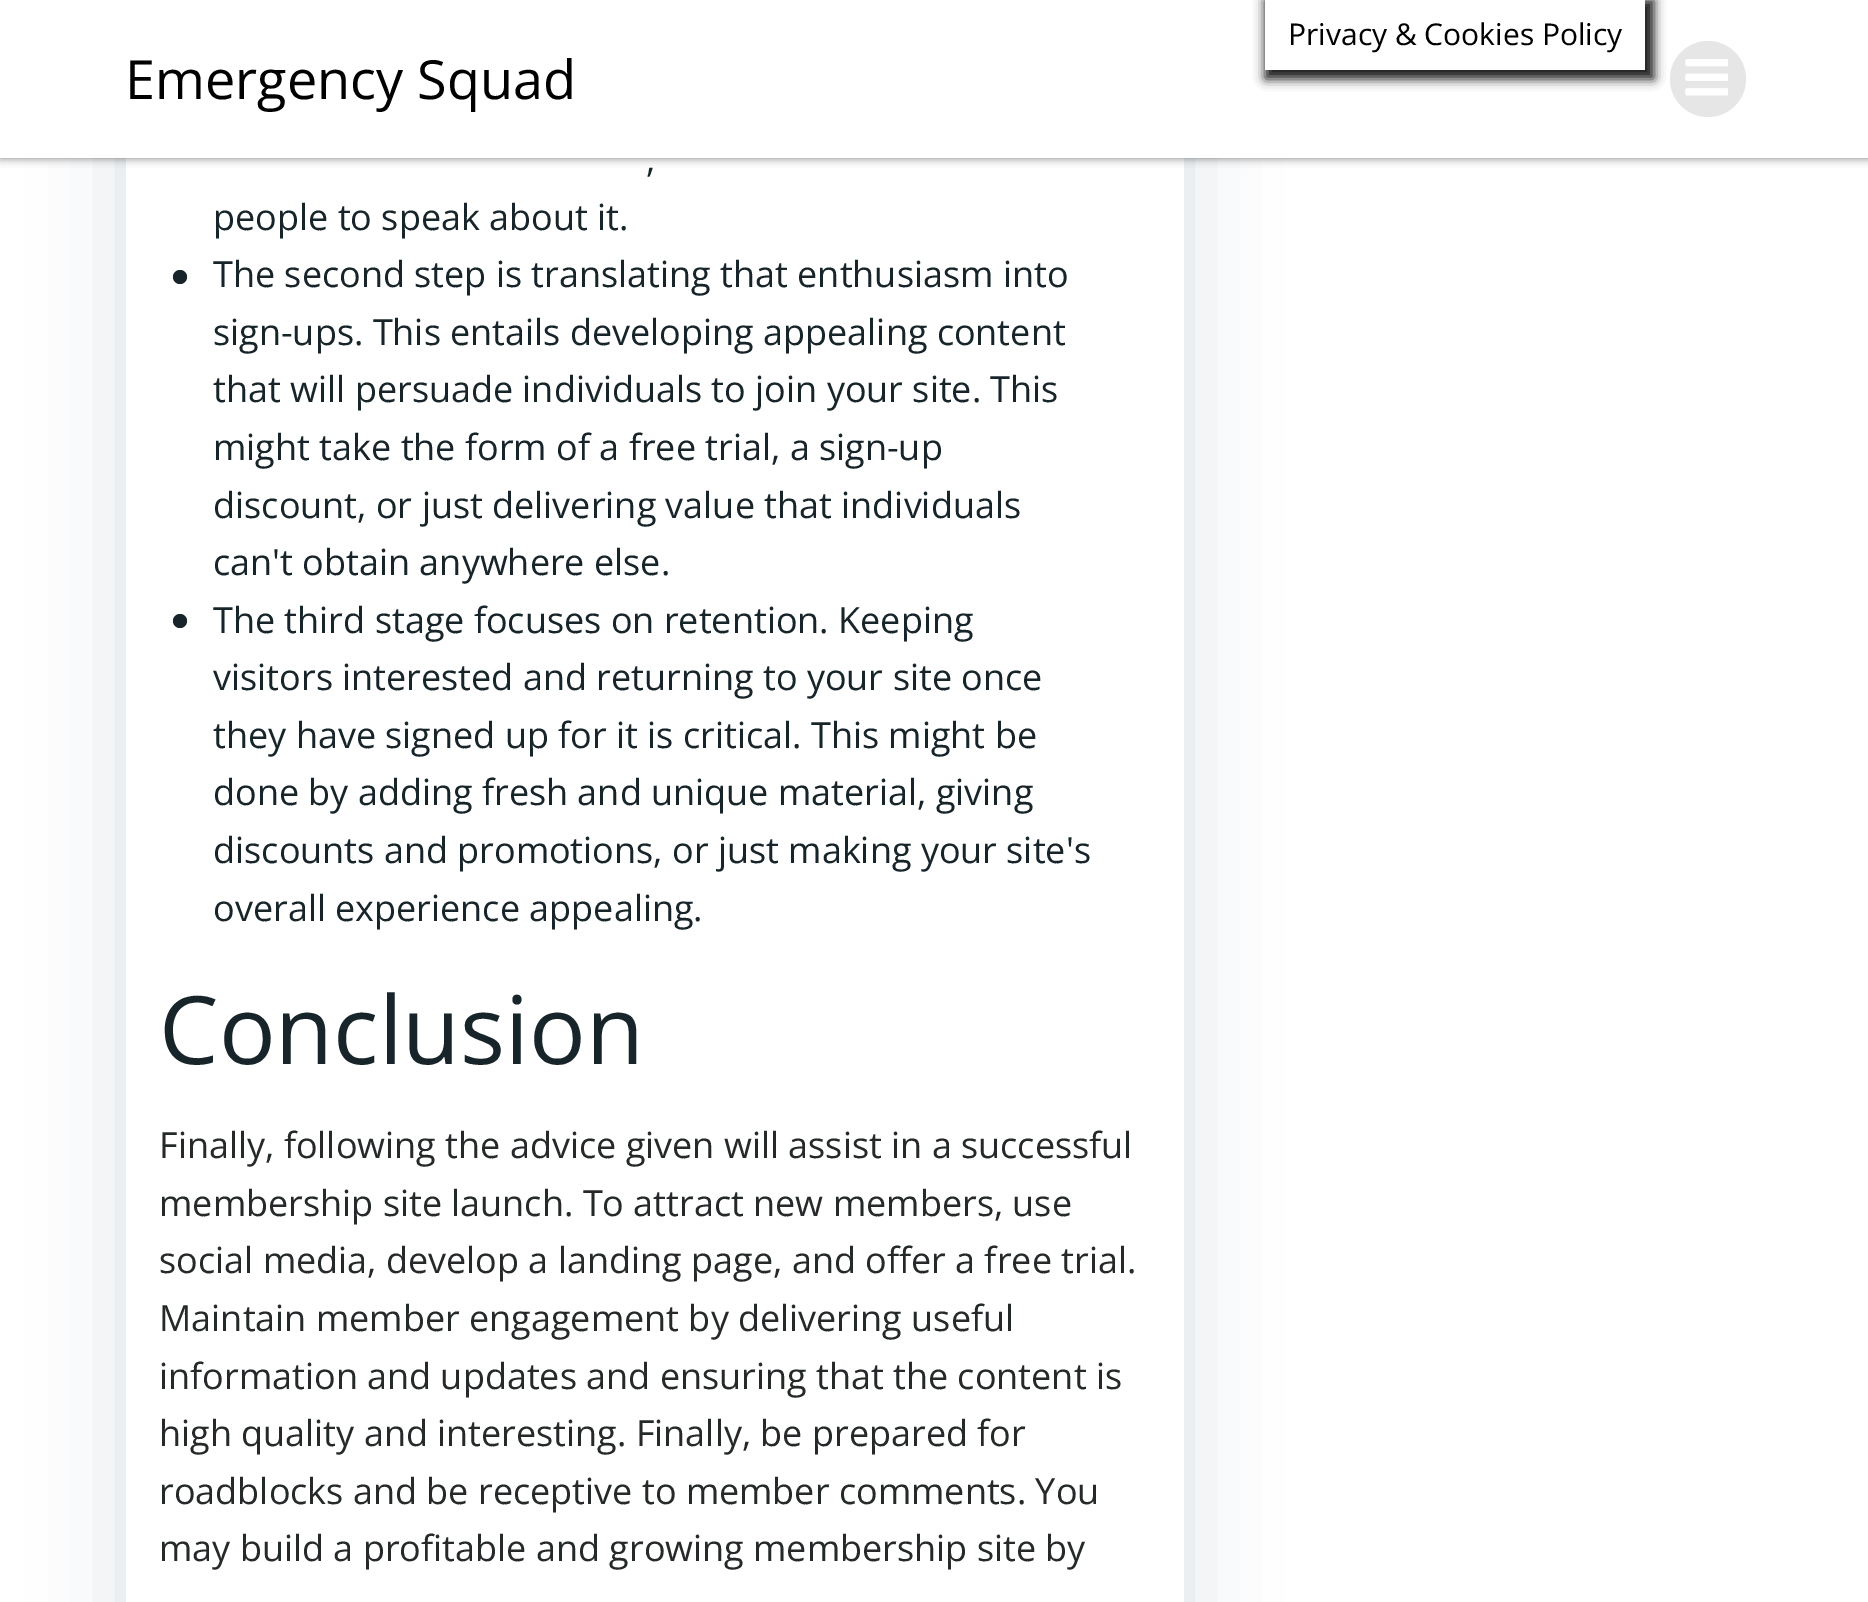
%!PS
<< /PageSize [1868 1602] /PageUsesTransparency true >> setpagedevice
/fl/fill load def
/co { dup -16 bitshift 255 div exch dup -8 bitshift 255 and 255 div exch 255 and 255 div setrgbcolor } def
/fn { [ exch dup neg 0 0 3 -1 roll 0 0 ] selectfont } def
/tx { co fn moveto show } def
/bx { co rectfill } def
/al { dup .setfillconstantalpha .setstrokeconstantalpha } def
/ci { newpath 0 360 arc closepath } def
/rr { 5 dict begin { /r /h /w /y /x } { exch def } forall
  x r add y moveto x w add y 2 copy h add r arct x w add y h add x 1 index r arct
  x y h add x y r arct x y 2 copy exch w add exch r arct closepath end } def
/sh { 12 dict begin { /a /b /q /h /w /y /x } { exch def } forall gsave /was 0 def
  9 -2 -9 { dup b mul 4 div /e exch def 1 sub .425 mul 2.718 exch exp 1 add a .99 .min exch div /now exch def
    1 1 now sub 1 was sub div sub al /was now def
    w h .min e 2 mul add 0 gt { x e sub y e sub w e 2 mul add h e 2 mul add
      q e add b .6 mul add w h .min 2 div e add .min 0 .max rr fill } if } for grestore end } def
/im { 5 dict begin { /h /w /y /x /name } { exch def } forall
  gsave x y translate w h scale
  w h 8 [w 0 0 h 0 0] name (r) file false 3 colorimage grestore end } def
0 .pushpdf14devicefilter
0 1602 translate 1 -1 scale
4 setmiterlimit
0 0 1868 1602 16#FFFFFF bx
16#01334A co
126 -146 1058 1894 11 45 .15 sh
126 158 1058 1444 16#FFFFFF bx
16#000000 co
0 0 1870 158 0 4.5 .5 sh
0 0 1868 158 16#FFFFFF bx
16#E6E6E6 co
1708 79 38 ci fl
16#161616 co
1265 0 389 79 0 5.5 1 sh
1265 0 380 70 16#FFFFFF bx
(media/1.raw) 1685 59 43 37 im
16#17252A co
180 277 7 ci fl
180 621 7 ci fl
(Privacy & Cookies Policy) 1288 45 /OpenSans-Regular 30 16#000000 tx
(Emergency Squad) 125 99 /OpenSans-Regular 54 16#000000 tx
(,) 646 172 /OpenSans-Regular 36 16#17252A tx
(people to speak about it.) 213 230 /OpenSans-Regular 36 16#17252A tx
(The second step is translating that enthusiasm into) 213 287 /OpenSans-Regular 36 16#17252A tx
(sign-ups. This entails developing appealing content) 213 345 /OpenSans-Regular 36 16#17252A tx
(that will persuade individuals to join your site. This) 213 402 /OpenSans-Regular 36 16#17252A tx
(might take the form of a free trial, a sign-up) 213 460 /OpenSans-Regular 36 16#17252A tx
(discount, or just delivering value that individuals) 213 518 /OpenSans-Regular 36 16#17252A tx
(can't obtain anywhere else.) 213 575 /OpenSans-Regular 36 16#17252A tx
(The third stage focuses on retention. Keeping) 213 633 /OpenSans-Regular 36 16#17252A tx
(visitors interested and returning to your site once) 213 690 /OpenSans-Regular 36 16#17252A tx
(they have signed up for it is critical. This might be) 213 748 /OpenSans-Regular 36 16#17252A tx
(done by adding fresh and unique material, giving) 213 805 /OpenSans-Regular 36 16#17252A tx
(discounts and promotions, or just making your site's) 213 863 /OpenSans-Regular 36 16#17252A tx
(overall experience appealing.) 213 921 /OpenSans-Regular 36 16#17252A tx
(Conclusion) 159 1064 /OpenSans-Regular 94.5 16#17252A tx
(Finally, following the advice given will assist in a successful) 159 1158 /OpenSans-Regular 36 16#25292A tx
(membership site launch. To attract new members, use) 159 1216 /OpenSans-Regular 36 16#25292A tx
(social media, develop a landing page, and offer a free trial.) 159 1273 /OpenSans-Regular 36 16#25292A tx
(Maintain member engagement by delivering useful) 159 1331 /OpenSans-Regular 36 16#25292A tx
(information and updates and ensuring that the content is) 159 1389 /OpenSans-Regular 36 16#25292A tx
(high quality and interesting. Finally, be prepared for) 159 1446 /OpenSans-Regular 36 16#25292A tx
(roadblocks and be receptive to member comments. You) 159 1504 /OpenSans-Regular 36 16#25292A tx
(may build a profitable and growing membership site by) 159 1561 /OpenSans-Regular 36 16#25292A tx
.poppdf14devicefilter showpage
